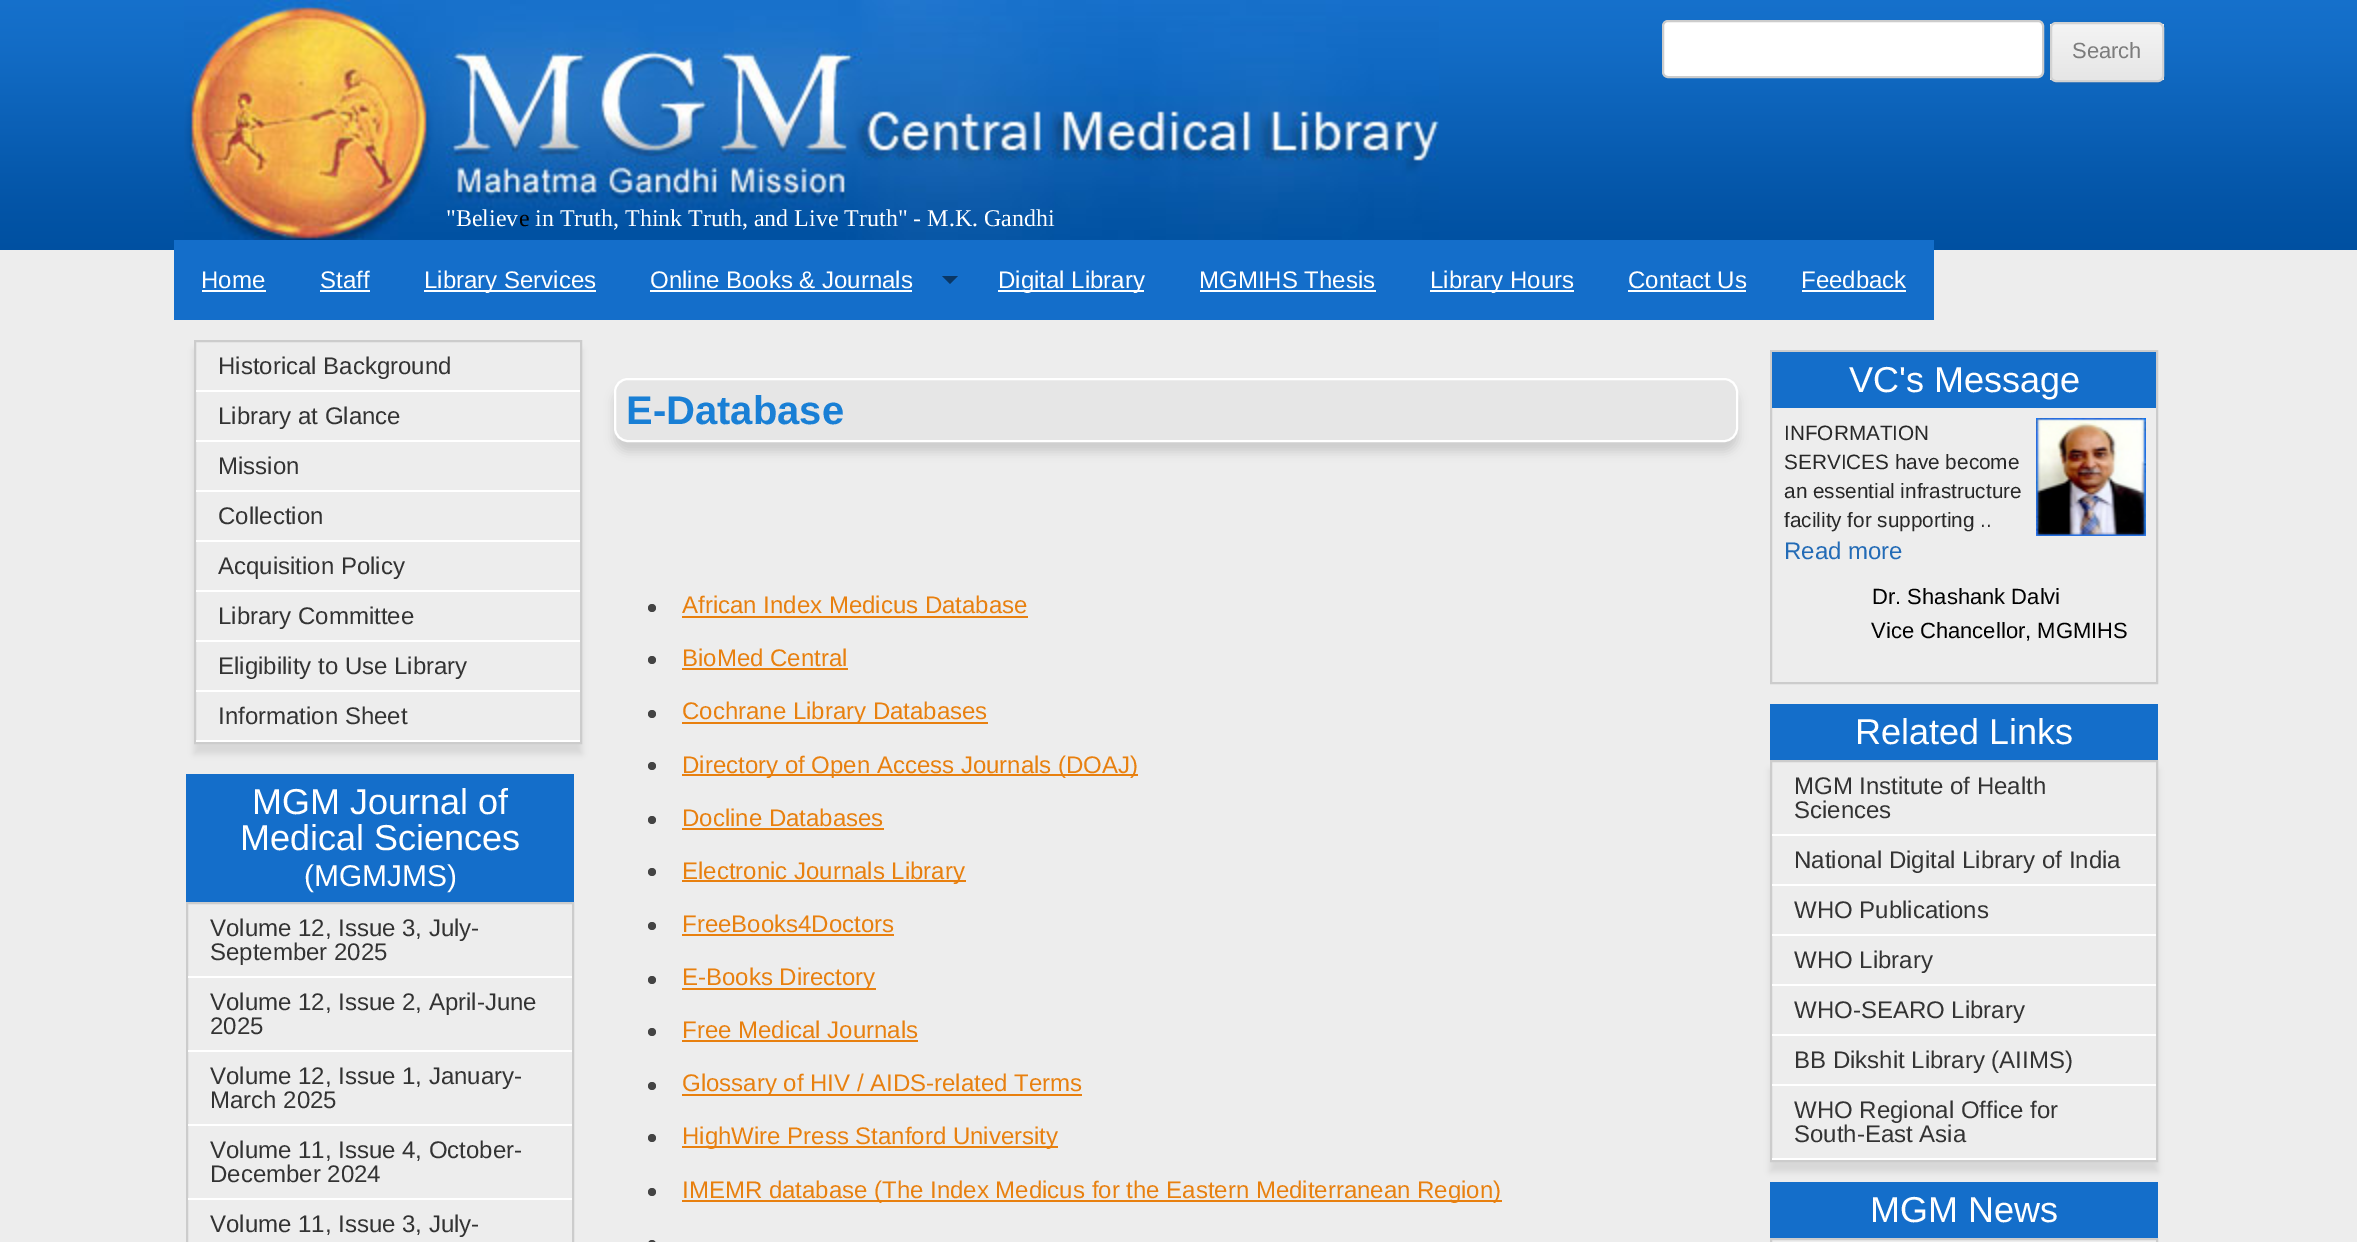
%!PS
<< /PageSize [2357 1242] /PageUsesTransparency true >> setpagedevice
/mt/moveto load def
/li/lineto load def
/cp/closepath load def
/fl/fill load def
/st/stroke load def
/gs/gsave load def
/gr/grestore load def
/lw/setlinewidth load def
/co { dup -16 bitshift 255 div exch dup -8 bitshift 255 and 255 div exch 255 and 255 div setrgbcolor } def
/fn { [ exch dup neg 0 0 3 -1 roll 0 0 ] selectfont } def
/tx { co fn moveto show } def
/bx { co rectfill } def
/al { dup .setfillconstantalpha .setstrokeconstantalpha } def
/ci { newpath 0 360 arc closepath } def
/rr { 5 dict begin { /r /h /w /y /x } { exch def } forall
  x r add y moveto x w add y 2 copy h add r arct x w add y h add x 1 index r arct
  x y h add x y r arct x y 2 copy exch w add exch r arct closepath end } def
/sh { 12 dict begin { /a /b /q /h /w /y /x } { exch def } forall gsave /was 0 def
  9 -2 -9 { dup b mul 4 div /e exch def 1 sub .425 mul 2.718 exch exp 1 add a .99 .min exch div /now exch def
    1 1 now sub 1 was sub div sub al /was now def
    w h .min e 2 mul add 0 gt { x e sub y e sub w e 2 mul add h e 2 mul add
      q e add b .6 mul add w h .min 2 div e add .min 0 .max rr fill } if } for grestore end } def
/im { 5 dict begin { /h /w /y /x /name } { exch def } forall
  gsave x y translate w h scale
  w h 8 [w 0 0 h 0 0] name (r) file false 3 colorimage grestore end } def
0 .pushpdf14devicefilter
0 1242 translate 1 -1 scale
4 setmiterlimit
0 0 2357 1242 16#EDEDED bx
(media/1.raw) 0 0 2357 250 im
16#FFFFFF co
1663 21 380 56 5 rr gs fl gr
16#CCCCCC co
2 lw
st
16#404040 co
2050 24 114 60 6 2 .1 sh
gs
2050 22 114 60 6 rr clip newpath
gs 2050 24 mt 2164 24 li 2164 80 li 2050 80 li cp clip newpath
<< /ShadingType 2 /ColorSpace /DeviceRGB /Coords [2107 24 2107 80] /Extend [true true] /Function << /FunctionType 2 /Domain [0 1] /C0 [.957 .957 .957] /C1 [.902 .902 .902] /N 1 >> >> shfill gr
gr
16#D2D2D2 co
2051 23 112 58 5 rr st
(media/2.raw) 184 0 1255 240 im
174 240 1760 80 16#146ECA bx
202 290 64 2 16#FFFFFF bx
320 290 50 2 16#FFFFFF bx
424 290 172 2 16#FFFFFF bx
650 290 262 2 16#FFFFFF bx
16#0A3765 co
942 276 mt 958 276 li 950 284 li cp fl
998 290 146 2 16#FFFFFF bx
1200 290 176 2 16#FFFFFF bx
1430 290 144 2 16#FFFFFF bx
1628 290 118 2 16#FFFFFF bx
1802 290 104 2 16#FFFFFF bx
gs
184 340 mt 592 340 li 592 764 li 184 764 li cp 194 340 mt 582 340 li 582 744 li 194 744 li cp eoclip newpath
16#D7D7D7 co
194 350 388 404 0 3 1 sh
gr
16#CCCCCC co
195 341 386 402 rectstroke
196 390 384 2 16#FFFFFF bx
196 440 384 2 16#FFFFFF bx
196 490 384 2 16#FFFFFF bx
196 540 384 2 16#FFFFFF bx
196 590 384 2 16#FFFFFF bx
196 640 384 2 16#FFFFFF bx
196 690 384 2 16#FFFFFF bx
196 740 384 2 16#FFFFFF bx
186 774 388 128 16#146ECA bx
16#CCCCCC co
187 903 386 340 rectstroke
188 976 384 2 16#FFFFFF bx
188 1050 384 2 16#FFFFFF bx
188 1124 384 2 16#FFFFFF bx
188 1198 384 2 16#FFFFFF bx
16#CCCCCC co
614 388 1124 64 14 5 1 sh
16#E6E6E6 co
615 379 1122 62 13 rr gs fl gr
16#FFFFFF co
st
16#444444 co
652 608 4 ci fl
682 616 346 2 16#E8800F bx
16#444444 co
652 660 4 ci fl
682 668 166 2 16#E8800F bx
16#444444 co
652 714 4 ci fl
682 722 306 2 16#E8800F bx
16#444444 co
652 766 4 ci fl
682 774 456 2 16#E8800F bx
16#444444 co
652 820 4 ci fl
682 828 202 2 16#E8800F bx
16#444444 co
652 872 4 ci fl
682 880 284 2 16#E8800F bx
16#444444 co
652 926 4 ci fl
682 934 212 2 16#E8800F bx
16#444444 co
652 980 4 ci fl
682 988 194 2 16#E8800F bx
16#444444 co
652 1032 4 ci fl
682 1040 236 2 16#E8800F bx
16#444444 co
652 1086 4 ci fl
682 1094 400 2 16#E8800F bx
16#444444 co
652 1138 4 ci fl
682 1146 376 2 16#E8800F bx
16#444444 co
652 1192 4 ci fl
682 1200 820 2 16#E8800F bx
16#444444 co
648 1240 8 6 4 rr fl
16#CCCCCC co
1771 351 386 332 rectstroke
1772 352 384 56 16#146ECA bx
(media/3.raw) 2036 418 110 118 im
1770 704 388 56 16#146ECA bx
gs
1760 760 mt 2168 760 li 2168 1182 li 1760 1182 li cp 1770 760 mt 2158 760 li 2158 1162 li 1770 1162 li cp eoclip newpath
16#D7D7D7 co
1770 770 388 402 0 3 1 sh
gr
16#CCCCCC co
1771 761 386 400 rectstroke
1772 834 384 2 16#FFFFFF bx
1772 884 384 2 16#FFFFFF bx
1772 934 384 2 16#FFFFFF bx
1772 984 384 2 16#FFFFFF bx
1772 1034 384 2 16#FFFFFF bx
1772 1084 384 2 16#FFFFFF bx
1772 1158 384 2 16#FFFFFF bx
1770 1182 388 56 16#146ECA bx
16#CCCCCC co
1771 1239 386 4 rectstroke
(Search) 2072 58 /LiberationSans-Regular 22 16#7C7C7C tx
("Believ) 446 226 /LiberationSerif-Regular 24 16#FFFFFF tx
(e) 519 226 /LiberationSerif-Regular 24 16#000000 tx
(in Truth, Think Truth, and Live Truth" - M.K. Gandhi) 535 226 /LiberationSerif-Regular 24 16#FFFFFF tx
(Home) 201 288 /LiberationSans-Regular 24 16#FFFFFF tx
(Staff) 320 288 /LiberationSans-Regular 24 16#FFFFFF tx
(Library Services) 424 288 /LiberationSans-Regular 24 16#FFFFFF tx
(Online Books & Journals) 650 288 /LiberationSans-Regular 24 16#FFFFFF tx
(Digital Library) 998 288 /LiberationSans-Regular 24 16#FFFFFF tx
(MGMIHS Thesis) 1199 288 /LiberationSans-Regular 24 16#FFFFFF tx
(Library Hours) 1430 288 /LiberationSans-Regular 24 16#FFFFFF tx
(Contact Us) 1628 288 /LiberationSans-Regular 24 16#FFFFFF tx
(Feedback) 1801 288 /LiberationSans-Regular 24 16#FFFFFF tx
(Historical Background) 218 374 /LiberationSans-Regular 24 16#333333 tx
(Library at Glance) 218 424 /LiberationSans-Regular 24 16#333333 tx
(Mission) 218 474 /LiberationSans-Regular 24 16#333333 tx
(Collection) 218 524 /LiberationSans-Regular 24 16#333333 tx
(Acquisition Policy) 218 574 /LiberationSans-Regular 24 16#333333 tx
(Library Committee) 218 624 /LiberationSans-Regular 24 16#333333 tx
(Eligibility to Use Library) 218 674 /LiberationSans-Regular 24 16#333333 tx
(Information Sheet) 218 724 /LiberationSans-Regular 24 16#333333 tx
(MGM Journal of) 252 814 /LiberationSans-Regular 36 16#FFFFFF tx
(Medical Sciences) 240 850 /LiberationSans-Regular 36 16#FFFFFF tx
(\(MGMJMS\)) 304 886 /LiberationSans-Regular 30 16#FFFFFF tx
(Volume 12, Issue 3, July-) 210 936 /LiberationSans-Regular 24 16#333333 tx
(September 2025) 210 960 /LiberationSans-Regular 24 16#333333 tx
(Volume 12, Issue 2, April-June) 210 1010 /LiberationSans-Regular 24 16#333333 tx
(2025) 210 1034 /LiberationSans-Regular 24 16#333333 tx
(Volume 12, Issue 1, January-) 210 1084 /LiberationSans-Regular 24 16#333333 tx
(March 2025) 210 1108 /LiberationSans-Regular 24 16#333333 tx
(Volume 11, Issue 4, October-) 210 1158 /LiberationSans-Regular 24 16#333333 tx
(December 2024) 210 1182 /LiberationSans-Regular 24 16#333333 tx
(Volume 11, Issue 3, July-) 210 1232 /LiberationSans-Regular 24 16#333333 tx
(E-Database) 626 424 /LiberationSans-Bold 40 16#197FD5 tx
(African Index Medicus Database) 682 613 /LiberationSans-Regular 24 16#E8800F tx
(BioMed Central) 682 666 /LiberationSans-Regular 24 16#E8800F tx
(Cochrane Library Databases) 682 719 /LiberationSans-Regular 24 16#E8800F tx
(Directory of Open Access Journals \(DOAJ\)) 682 773 /LiberationSans-Regular 24 16#E8800F tx
(Docline Databases) 682 826 /LiberationSans-Regular 24 16#E8800F tx
(Electronic Journals Library) 682 879 /LiberationSans-Regular 24 16#E8800F tx
(FreeBooks4Doctors) 682 932 /LiberationSans-Regular 24 16#E8800F tx
(E-Books Directory) 682 985 /LiberationSans-Regular 24 16#E8800F tx
(Free Medical Journals) 682 1038 /LiberationSans-Regular 24 16#E8800F tx
(Glossary of HIV / AIDS-related Terms) 682 1091 /LiberationSans-Regular 24 16#E8800F tx
(HighWire Press Stanford University) 682 1144 /LiberationSans-Regular 24 16#E8800F tx
(IMEMR database \(The Index Medicus for the Eastern Mediterranean Region\)) 682 1198 /LiberationSans-Regular 24 16#E8800F tx
(VC's Message) 1849 392 /LiberationSans-Regular 36 16#FFFFFF tx
(INFORMATION) 1784 440 /LiberationSans-Regular 20.75 16#282828 tx
(SERVICES have become) 1784 469 /LiberationSans-Regular 20.75 16#282828 tx
(an essential infrastructure) 1784 498 /LiberationSans-Regular 20.75 16#282828 tx
(facility for supporting ..) 1784 527 /LiberationSans-Regular 20.75 16#282828 tx
(Read more) 1784 559 /LiberationSans-Regular 24 16#236BB6 tx
(Dr. Shashank Dalvi) 1872 604 /LiberationSans-Regular 22 16#000000 tx
(Vice Chancellor, MGMIHS) 1871 638 /LiberationSans-Regular 22 16#000000 tx
(Related Links) 1855 744 /LiberationSans-Regular 36 16#FFFFFF tx
(MGM Institute of Health) 1794 794 /LiberationSans-Regular 24 16#333333 tx
(Sciences) 1794 818 /LiberationSans-Regular 24 16#333333 tx
(National Digital Library of India) 1794 868 /LiberationSans-Regular 24 16#333333 tx
(WHO Publications) 1794 918 /LiberationSans-Regular 24 16#333333 tx
(WHO Library) 1794 968 /LiberationSans-Regular 24 16#333333 tx
(WHO-SEARO Library) 1794 1018 /LiberationSans-Regular 24 16#333333 tx
(BB Dikshit Library \(AIIMS\)) 1794 1068 /LiberationSans-Regular 24 16#333333 tx
(WHO Regional Office for) 1794 1118 /LiberationSans-Regular 24 16#333333 tx
(South-East Asia) 1794 1142 /LiberationSans-Regular 24 16#333333 tx
(MGM News) 1870 1222 /LiberationSans-Regular 36 16#FFFFFF tx
.poppdf14devicefilter showpage
